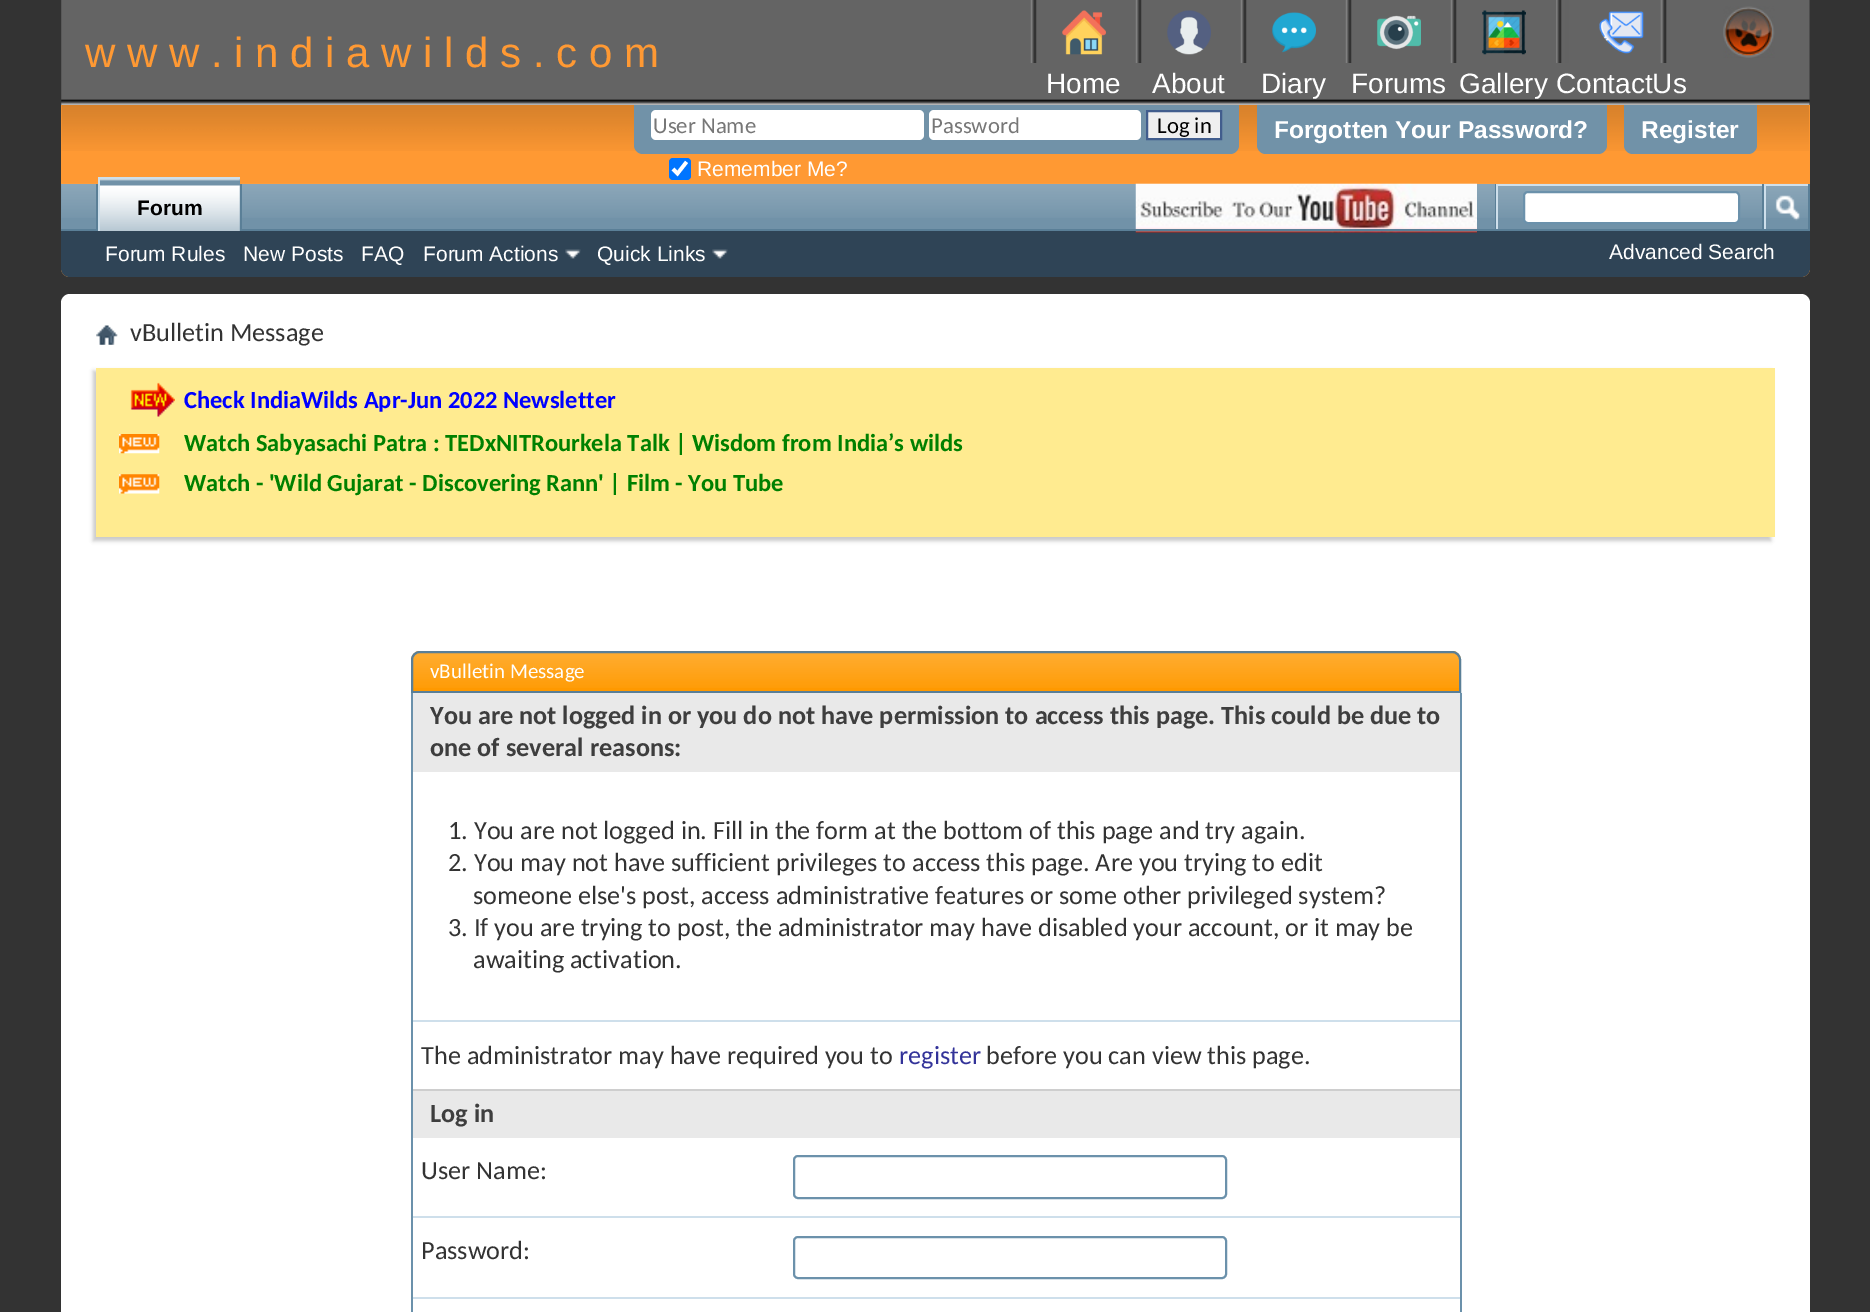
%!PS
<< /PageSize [1870 1312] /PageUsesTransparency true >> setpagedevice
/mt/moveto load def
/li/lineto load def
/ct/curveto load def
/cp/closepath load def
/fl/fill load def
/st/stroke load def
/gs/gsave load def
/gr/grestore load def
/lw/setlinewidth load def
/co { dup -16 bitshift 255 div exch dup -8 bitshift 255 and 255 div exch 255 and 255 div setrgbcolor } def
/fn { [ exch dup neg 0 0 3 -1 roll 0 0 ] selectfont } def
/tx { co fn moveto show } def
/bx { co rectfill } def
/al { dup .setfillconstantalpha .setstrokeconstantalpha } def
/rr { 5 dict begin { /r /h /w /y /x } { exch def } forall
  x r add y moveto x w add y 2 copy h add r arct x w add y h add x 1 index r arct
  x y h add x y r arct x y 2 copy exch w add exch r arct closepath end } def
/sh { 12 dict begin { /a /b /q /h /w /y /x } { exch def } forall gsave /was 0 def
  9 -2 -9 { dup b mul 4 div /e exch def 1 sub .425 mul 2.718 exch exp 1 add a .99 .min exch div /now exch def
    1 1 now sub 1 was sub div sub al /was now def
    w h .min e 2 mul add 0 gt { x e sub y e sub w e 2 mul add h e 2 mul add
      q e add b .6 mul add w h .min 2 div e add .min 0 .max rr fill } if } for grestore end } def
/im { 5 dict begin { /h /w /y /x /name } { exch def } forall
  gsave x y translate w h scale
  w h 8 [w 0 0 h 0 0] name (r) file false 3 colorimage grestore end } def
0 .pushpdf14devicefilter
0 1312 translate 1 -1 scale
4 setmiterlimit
0 0 1870 1312 16#333333 bx
(media/1.raw) 61 0 1749 105 im
(media/2.raw) 1030 0 7 63 im
(media/3.raw) 1062 10 44 45 im
(media/2.raw) 1135 0 7 63 im
(media/4.raw) 1167 10 44 45 im
(media/2.raw) 1240 0 7 63 im
(media/5.raw) 1272 12 44 41 im
(media/6.raw) 1345 0 7 63 im
(media/7.raw) 1377 15 44 35 im
(media/6.raw) 1450 0 7 63 im
(media/8.raw) 1482 10 44 45 im
(media/9.raw) 1556 0 111 63 im
(media/10.raw) 1599 11 45 43 im
(media/11.raw) 1723 6 52 52 im
16#FF9933 co
61 105 mt 1810 105 li 1810 268 li 1810 273 1806 277 1801 277 ct 70 277 li 65 277 61 273 61 268 ct cp fl
(media/12.raw) 61 105 1749 46 im
16#7192A8 co
634 105 mt 1239 105 li 1239 145 li 1239 150 1235 154 1230 154 ct 643 154 li 638 154 634 150 634 145 ct cp fl
16#FFFFFF co
651 110 273 30 5 rr fl
929 110 212 30 5 rr fl
16#EFEFEF co
1147 111 mt 1221 111 li 1221 139 li 1147 139 li cp gs fl gr
16#415D8D co
2 lw
st
16#0075FF co
669 158 22 22 4 rr fl
16#FFFFFF co
3.6 lw
673 169 mt 677.5 173.5 li 686.5 162 li st
16#7192A8 co
1257 105 mt 1607 105 li 1607 145 li 1607 150 1603 154 1598 154 ct 1266 154 li 1261 154 1257 150 1257 145 ct cp fl
1624 105 mt 1757 105 li 1757 145 li 1757 150 1753 154 1748 154 ct 1633 154 li 1628 154 1624 150 1624 145 ct cp fl
16#2F4456 co
61 184 mt 1810 184 li 1810 268 li 1810 273 1806 277 1801 277 ct 70 277 li 65 277 61 273 61 268 ct cp fl
61 184 1747 45 16#7192A8 bx
(media/13.raw) 61 183 1749 35 im
240 184 2 45 16#5A7F97 bx
96 184 2 45 16#5A7F97 bx
(media/15.raw) 1135 183 342 50 im
61 229 1749 2 16#5A7F97 bx
100 179 140 52 16#7192A8 bx
(media/14.raw) 100 179 140 52 im
98 177 142 2 16#CEDFEB bx
98 177 2 54 16#CEDFEB bx
(media/16.raw) 565 249 16 10 im
(media/17.raw) 712 249 16 10 im
1495 184 1 45 16#5A7F97 bx
1496 184 266 2 16#CEDFEB bx
1496 184 2 45 16#CEDFEB bx
16#FFFFFF co
1524 192 215 31 4 rr gs fl gr
16#6B91AB co
2 lw
st
1808 184 2 45 16#5A7F97 bx
1762 184 2 45 16#5A7F97 bx
1764 184 44 2 16#CEDFEB bx
1764 184 2 45 16#CEDFEB bx
(media/18.raw) 1775 195 25 26 im
16#FFFFFF co
61 294 1749 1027 9 rr fl
(media/19.raw) 96 325 22 20 im
16#C8C8C8 co
93 371 1678 170 0 2 1 sh
96 368 1679 169 16#FFEB90 bx
(media/20.raw) 130 382 45 35 im
(media/21.raw) 119 434 41 20 im
(media/22.raw) 119 474 41 20 im
16#FF9900 co
420 651 mt 1452 651 li 1457 651 1461 655 1461 660 ct 1461 693 li 411 693 li 411 660 li 411 655 415 651 420 651 ct cp fl
(media/23.raw) 411 652 1050 36 im
16#5A7F97 co
420 652 mt 1452 652 li 1456.5 652 1460 655.5 1460 660 ct 1460 692 li 412 692 li 412 660 li 412 655.5 415.5 652 420 652 ct cp st
1460 693 2 619 16#6B91AB bx
411 693 2 619 16#6B91AB bx
413 693 1047 79 16#E9E9E9 bx
413 1020 1047 2 16#CEDFEB bx
413 1091 1047 47 16#E9E9E9 bx
413 1089 1047 2 16#CECECE bx
16#6B91AB co
794 1156 432 42 4 rr st
413 1216 1047 2 16#CEDFEB bx
16#6B91AB co
794 1237 432 41 4 rr st
413 1297 1047 2 16#CEDFEB bx
(w w w . i n d i a w i l d s . c o m) 85 67 /LiberationSans-Regular 42 16#FF9933 tx
(Home) 1046 93 /LiberationSans-Regular 28 16#FFFFFF tx
(About) 1152 93 /LiberationSans-Regular 28 16#FFFFFF tx
(Diary) 1261 93 /LiberationSans-Regular 28 16#FFFFFF tx
(Forums) 1351 93 /LiberationSans-Regular 28 16#FFFFFF tx
(Gallery) 1459 93 /LiberationSans-Regular 28 16#FFFFFF tx
(ContactUs) 1556 93 /LiberationSans-Regular 28 16#FFFFFF tx
(User Name) 653 133 /Carlito-Regular 22.75 16#777777 tx
(Password) 931 133 /Carlito-Regular 22.75 16#777777 tx
(Log in) 1157 133 /Carlito-Regular 22.75 16#000000 tx
(Remember Me?) 697 176 /LiberationSans-Regular 21 16#FFFFFF tx
(Forgotten Your Password?) 1274 138 /LiberationSans-Bold 24.5 16#FFFFFF tx
(Register) 1641 138 /LiberationSans-Bold 24.5 16#FFFFFF tx
(Forum) 137 215 /LiberationSans-Bold 21 16#000000 tx
(Forum Rules) 105 261 /LiberationSans-Regular 21 16#FFFFFF tx
(New Posts) 243 261 /LiberationSans-Regular 21 16#FFFFFF tx
(FAQ) 361 261 /LiberationSans-Regular 21 16#FFFFFF tx
(Forum Actions) 423 261 /LiberationSans-Regular 21 16#FFFFFF tx
(Quick Links) 597 261 /LiberationSans-Regular 21 16#FFFFFF tx
(Advanced Search) 1609 259 /LiberationSans-Regular 21 16#FFFFFF tx
(vBulletin Message) 130 341 /Carlito-Regular 26.25 16#333333 tx
(Check IndiaWilds Apr-Jun 2022 Newsletter) 184 408 /Carlito-Bold 24.5 16#0000FF tx
(Watch Sabyasachi Patra : TEDxNITRourkela Talk | Wisdom from India’s wilds) 184 451 /Carlito-Bold 24.5 16#008000 tx
(Watch - 'Wild Gujarat - Discovering Rann' | Film - You Tube) 184 491 /Carlito-Bold 24.5 16#008000 tx
(vBulletin Message) 430 678 /Carlito-Regular 21 16#FFFFFF tx
(You are not logged in or you do not have permission to access this page. This could be due to) 430 724 /Carlito-Bold 26.25 16#3E3E3E tx
(one of several reasons:) 430 756 /Carlito-Bold 26.25 16#3E3E3E tx
(1. You are not logged in. Fill in the form at the bottom of this page and try again.) 448 839 /Carlito-Regular 26.25 16#333333 tx
(2. You may not have sufficient privileges to access this page. Are you trying to edit) 448 871 /Carlito-Regular 26.25 16#333333 tx
(someone else's post, access administrative features or some other privileged system?) 473 904 /Carlito-Regular 26.25 16#333333 tx
(3. If you are trying to post, the administrator may have disabled your account, or it may be) 448 936 /Carlito-Regular 26.25 16#333333 tx
(awaiting activation.) 473 968 /Carlito-Regular 26.25 16#333333 tx
(The administrator may have required you to) 421 1064 /Carlito-Regular 26.25 16#333333 tx
(register) 899 1064 /Carlito-Regular 26.25 16#333399 tx
(before you can view this page.) 986 1064 /Carlito-Regular 26.25 16#333333 tx
(Log in) 430 1122 /Carlito-Bold 26.25 16#3E3E3E tx
(User Name:) 421 1179 /Carlito-Regular 26.25 16#333333 tx
(Password:) 421 1259 /Carlito-Regular 26.25 16#333333 tx
.poppdf14devicefilter showpage
